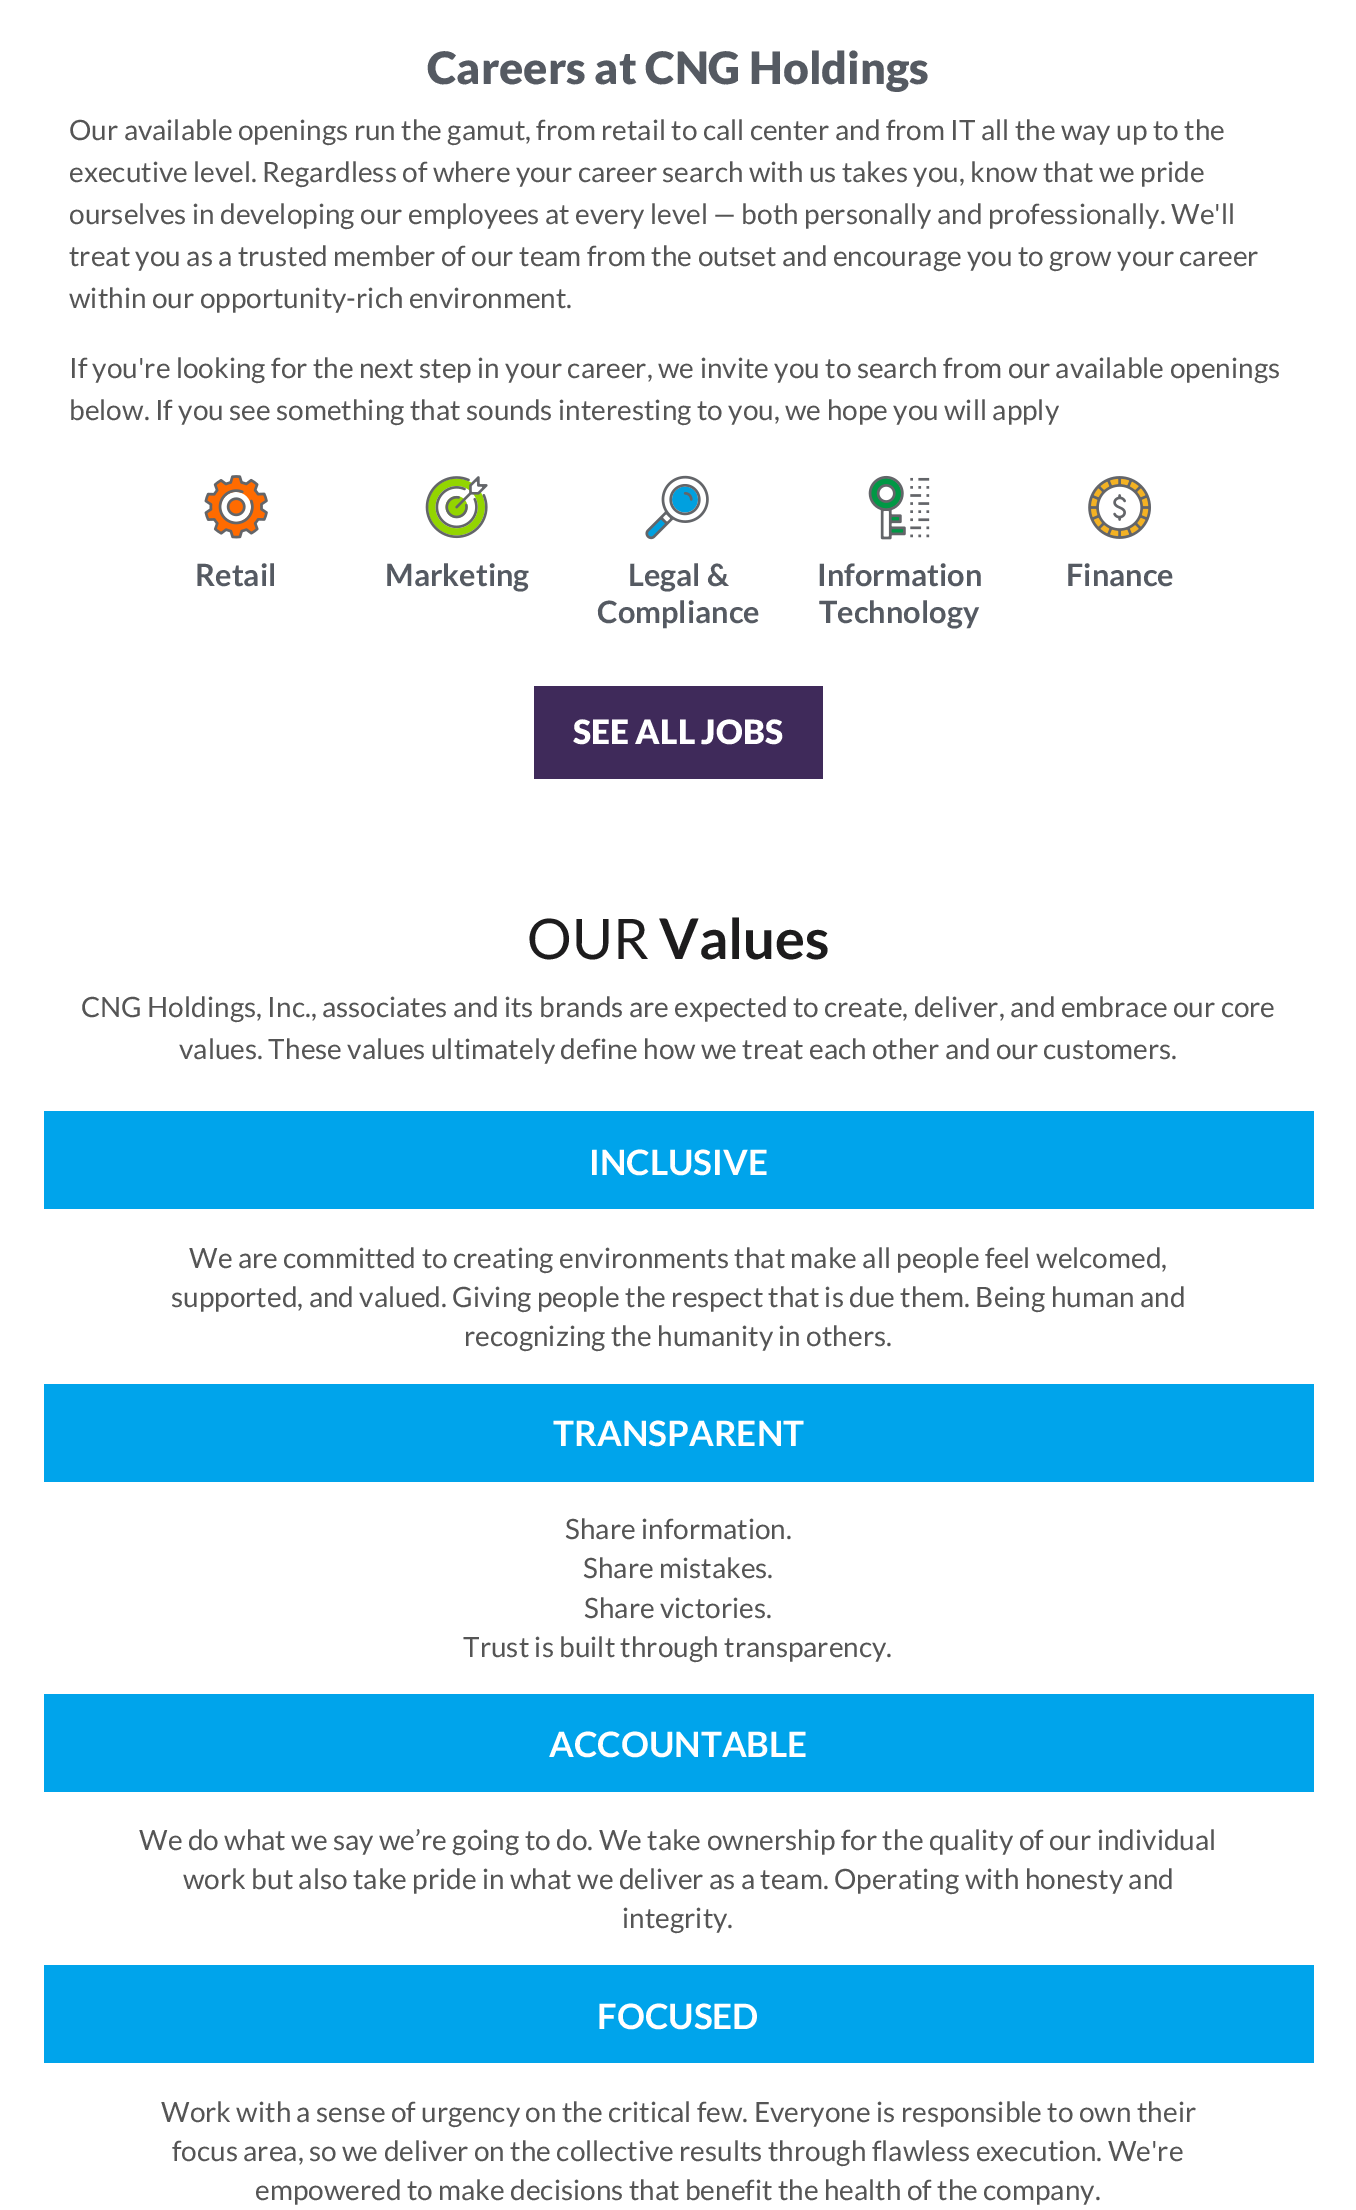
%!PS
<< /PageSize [1356 2210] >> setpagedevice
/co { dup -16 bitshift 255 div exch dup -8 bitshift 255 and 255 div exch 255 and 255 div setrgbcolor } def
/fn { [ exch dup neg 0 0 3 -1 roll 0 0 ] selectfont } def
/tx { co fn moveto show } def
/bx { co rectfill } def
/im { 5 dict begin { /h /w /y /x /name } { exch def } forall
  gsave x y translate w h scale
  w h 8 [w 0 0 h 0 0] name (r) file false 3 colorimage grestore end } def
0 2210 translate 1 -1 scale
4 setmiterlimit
0 0 1356 2210 16#FFFFFF bx
(media/1.raw) 204 475 64 64 im
(media/2.raw) 425 476 63 63 im
(media/3.raw) 645 475 64 65 im
(media/4.raw) 868 475 62 65 im
(media/5.raw) 1088 476 63 63 im
534 686 289 93 16#3F2A5A bx
44 1111 1270 98 16#00A4EB bx
44 1384 1270 98 16#00A4EB bx
44 1694 1270 98 16#00A4EB bx
44 1965 1270 98 16#00A4EB bx
(Careers at CNG Holdings) 427 84 /Lato-Black 44.75 16#555A62 tx
(Our available openings run the gamut, from retail to call center and from IT all the way up to the) 69 140 /Lato-Regular 28 16#555555 tx
(executive level. Regardless of where your career search with us takes you, know that we pride) 69 182 /Lato-Regular 28 16#555555 tx
(ourselves in developing our employees at every level — both personally and professionally. We'll) 69 224 /Lato-Regular 28 16#555555 tx
(treat you as a trusted member of our team from the outset and encourage you to grow your career) 69 266 /Lato-Regular 28 16#555555 tx
(within our opportunity-rich environment.) 69 308 /Lato-Regular 28 16#555555 tx
(If you're looking for the next step in your career, we invite you to search from our available openings) 69 378 /Lato-Regular 28 16#555555 tx
(below. If you see something that sounds interesting to you, we hope you will apply) 69 420 /Lato-Regular 28 16#555555 tx
(Retail) 195 586 /Lato-Bold 30.75 16#555A62 tx
(Marketing) 385 586 /Lato-Bold 30.75 16#555A62 tx
(Legal &) 628 586 /Lato-Bold 30.75 16#555A62 tx
(Compliance) 597 623 /Lato-Bold 30.75 16#555A62 tx
(Information) 817 586 /Lato-Bold 30.75 16#555A62 tx
(Technology) 819 623 /Lato-Bold 30.75 16#555A62 tx
(Finance) 1066 586 /Lato-Bold 30.75 16#555A62 tx
(SEE ALL JOBS) 573 744 /Lato-Black 33.5 16#FFFFFF tx
(OUR) 527 959 /Lato-Regular 56 16#1D1C1D tx
(Values) 659 959 /Lato-Bold 56 16#1D1C1D tx
(CNG Holdings, Inc., associates and its brands are expected to create, deliver, and embrace our core) 81 1017 /Lato-Regular 28 16#555555 tx
(values. These values ultimately define how we treat each other and our customers.) 179 1059 /Lato-Regular 28 16#555555 tx
(INCLUSIVE) 589 1175 /Lato-Bold 35 16#FFFFFF tx
(We are committed to creating environments that make all people feel welcomed,) 189 1268 /Lato-Regular 28 16#555555 tx
(supported, and valued. Giving people the respect that is due them. Being human and) 171 1307 /Lato-Regular 28 16#555555 tx
(recognizing the humanity in others.) 464 1346 /Lato-Regular 28 16#555555 tx
(TRANSPARENT) 553 1446 /Lato-Bold 35 16#FFFFFF tx
(Share information.) 565 1539 /Lato-Regular 28 16#555555 tx
(Share mistakes.) 583 1578 /Lato-Regular 28 16#555555 tx
(Share victories.) 584 1618 /Lato-Regular 28 16#555555 tx
(Trust is built through transparency.) 463 1657 /Lato-Regular 28 16#555555 tx
(ACCOUNTABLE) 549 1757 /Lato-Bold 35 16#FFFFFF tx
(We do what we say we’re going to do. We take ownership for the quality of our individual) 139 1850 /Lato-Regular 28 16#555555 tx
(work but also take pride in what we deliver as a team. Operating with honesty and) 183 1889 /Lato-Regular 28 16#555555 tx
(integrity.) 622 1928 /Lato-Regular 28 16#555555 tx
(FOCUSED) 597 2029 /Lato-Bold 35 16#FFFFFF tx
(Work with a sense of urgency on the critical few. Everyone is responsible to own their) 161 2122 /Lato-Regular 28 16#555555 tx
(focus area, so we deliver on the collective results through flawless execution. We're) 172 2161 /Lato-Regular 28 16#555555 tx
(empowered to make decisions that benefit the health of the company.) 255 2200 /Lato-Regular 28 16#555555 tx
showpage
